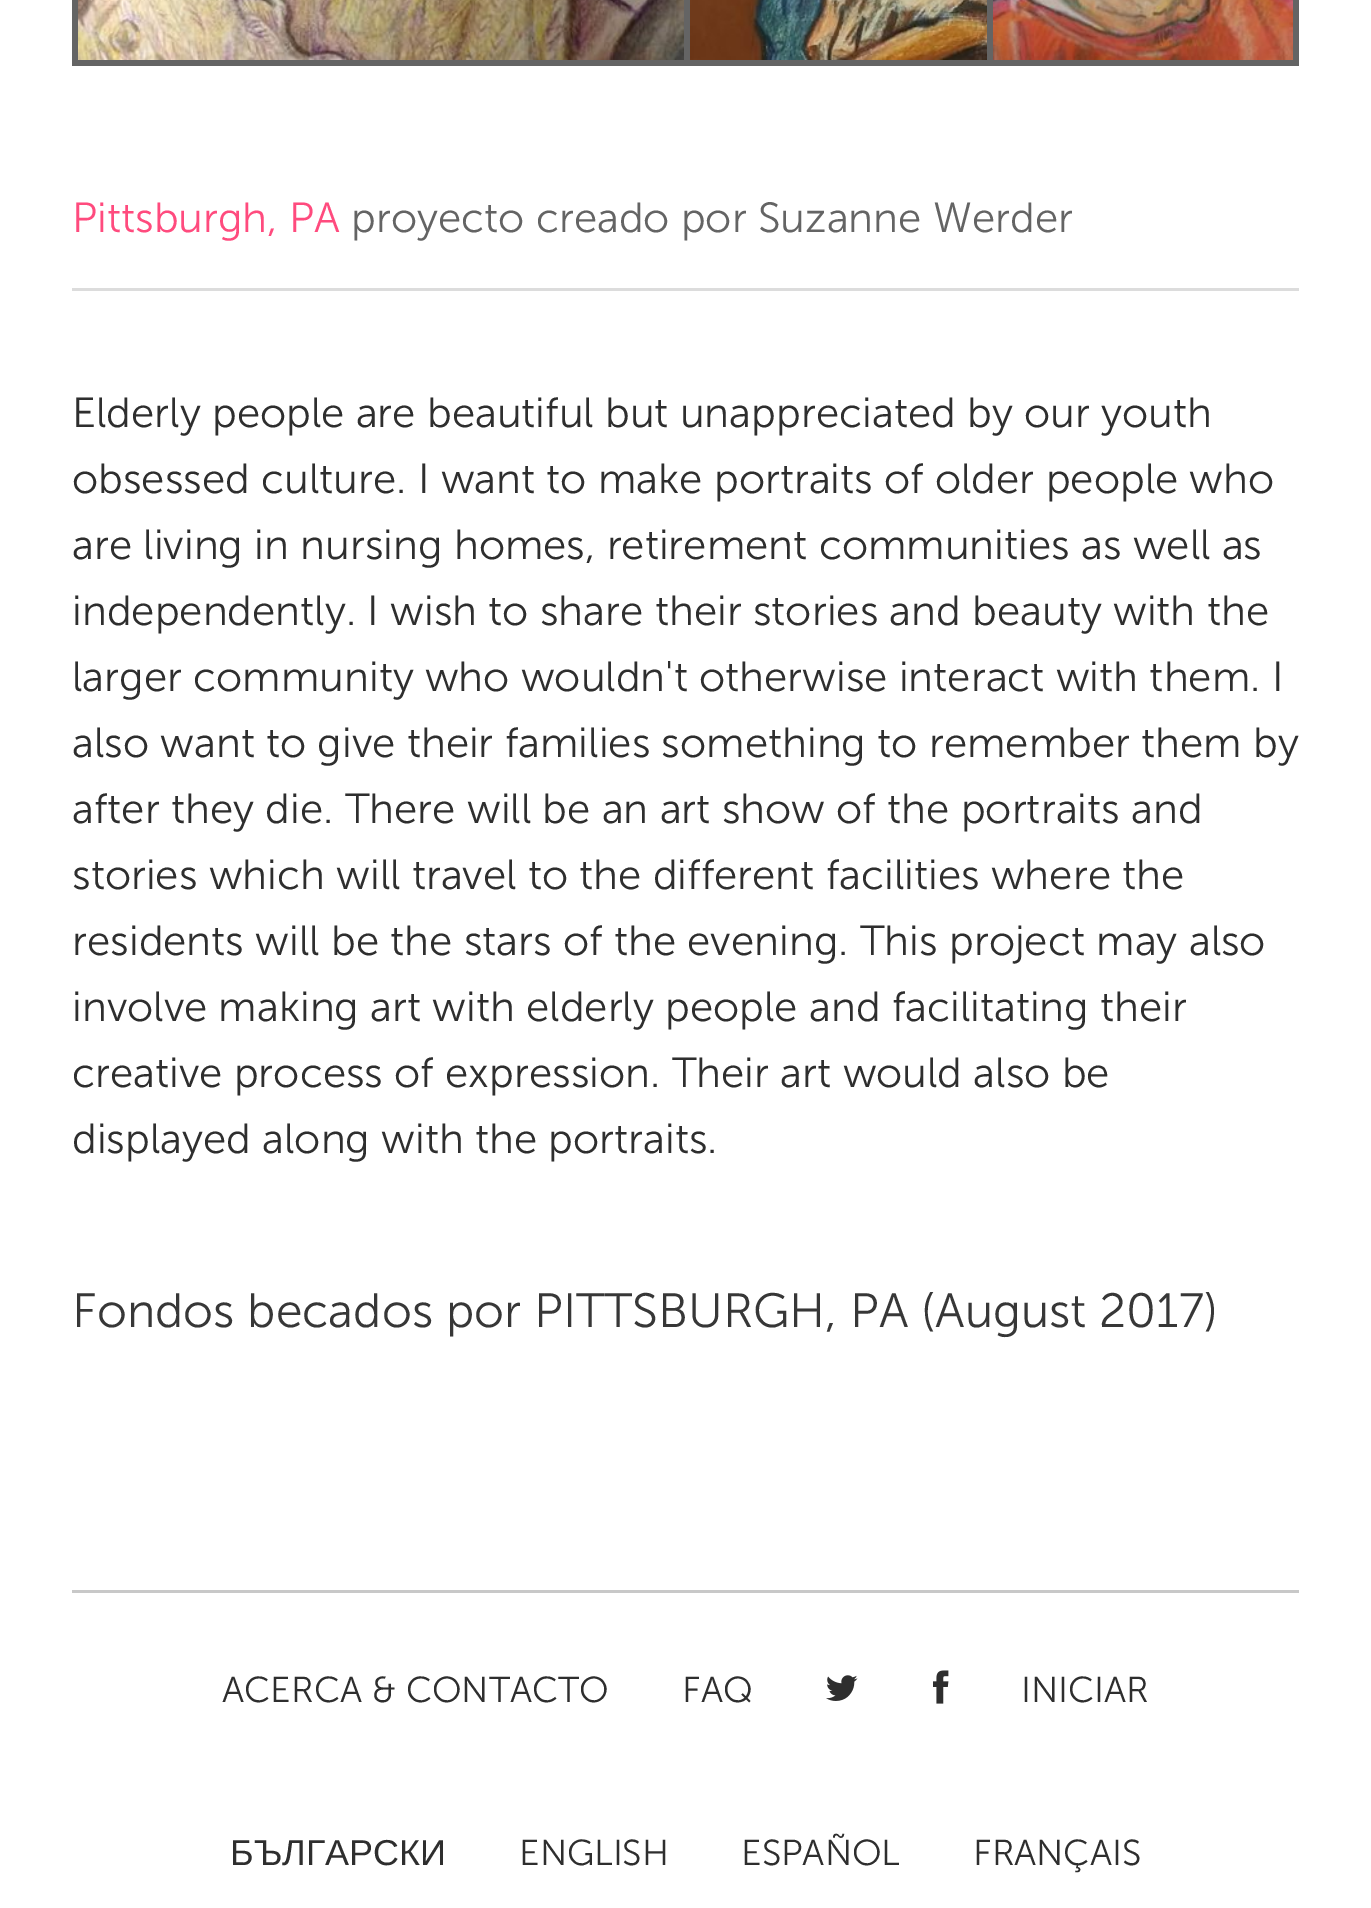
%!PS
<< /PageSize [1371 1908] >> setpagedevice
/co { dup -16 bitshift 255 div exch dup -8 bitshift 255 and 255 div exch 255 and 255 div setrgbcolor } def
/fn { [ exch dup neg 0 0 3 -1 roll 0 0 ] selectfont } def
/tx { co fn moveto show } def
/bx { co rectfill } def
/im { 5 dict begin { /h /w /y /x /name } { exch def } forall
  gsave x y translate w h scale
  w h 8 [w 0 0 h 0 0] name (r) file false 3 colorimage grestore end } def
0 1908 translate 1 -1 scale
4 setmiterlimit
0 0 1371 1908 16#FFFFFF bx
72 0 1227 66 16#646464 bx
(media/1.raw) 78 0 606 60 im
(media/2.raw) 690 0 297 60 im
(media/3.raw) 993 0 300 60 im
72 288 1227 3 16#DCDCDC bx
72 1590 1227 3 16#C8C8C8 bx
(media/4.raw) 826 1675 32 26 im
(media/5.raw) 933 1670 16 34 im
(Pittsburgh, PA) 72 232 /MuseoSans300-Light 42 16#FF4B7E tx
(proyecto creado por Suzanne Werder) 351 232 /MuseoSans300-Light 42 16#646464 tx
(Elderly people are beautiful but unappreciated by our youth) 72 427 /MuseoSans300-Light 42 16#2E2E2E tx
(obsessed culture. I want to make portraits of older people who) 72 493 /MuseoSans300-Light 42 16#2E2E2E tx
(are living in nursing homes, retirement communities as well as) 72 559 /MuseoSans300-Light 42 16#2E2E2E tx
(independently. I wish to share their stories and beauty with the) 72 625 /MuseoSans300-Light 42 16#2E2E2E tx
(larger community who wouldn't otherwise interact with them. I) 72 691 /MuseoSans300-Light 42 16#2E2E2E tx
(also want to give their families something to remember them by) 72 757 /MuseoSans300-Light 42 16#2E2E2E tx
(after they die. There will be an art show of the portraits and) 72 823 /MuseoSans300-Light 42 16#2E2E2E tx
(stories which will travel to the different facilities where the) 72 889 /MuseoSans300-Light 42 16#2E2E2E tx
(residents will be the stars of the evening. This project may also) 72 955 /MuseoSans300-Light 42 16#2E2E2E tx
(involve making art with elderly people and facilitating their) 72 1021 /MuseoSans300-Light 42 16#2E2E2E tx
(creative process of expression. Their art would also be) 72 1087 /MuseoSans300-Light 42 16#2E2E2E tx
(displayed along with the portraits.) 72 1153 /MuseoSans300-Light 42 16#2E2E2E tx
(Fondos becados por PITTSBURGH, PA \(August 2017\)) 72 1327 /MuseoSans300-Light 48 16#373737 tx
(ACERCA & CONTACTO) 222 1702 /MuseoSans300-Light 36 16#2E2E2E tx
(FAQ) 682 1702 /MuseoSans300-Light 36 16#2E2E2E tx
(INICIAR) 1021 1702 /MuseoSans300-Light 36 16#2E2E2E tx
(БЪЛГАРСКИ) 230 1865 /LiberationSans-Regular 36 16#2E2E2E tx
(ENGLISH) 519 1865 /MuseoSans300-Light 36 16#2E2E2E tx
(ESPAÑOL) 741 1865 /MuseoSans300-Light 36 16#2E2E2E tx
(FRANÇAIS) 973 1865 /MuseoSans300-Light 36 16#2E2E2E tx
showpage
